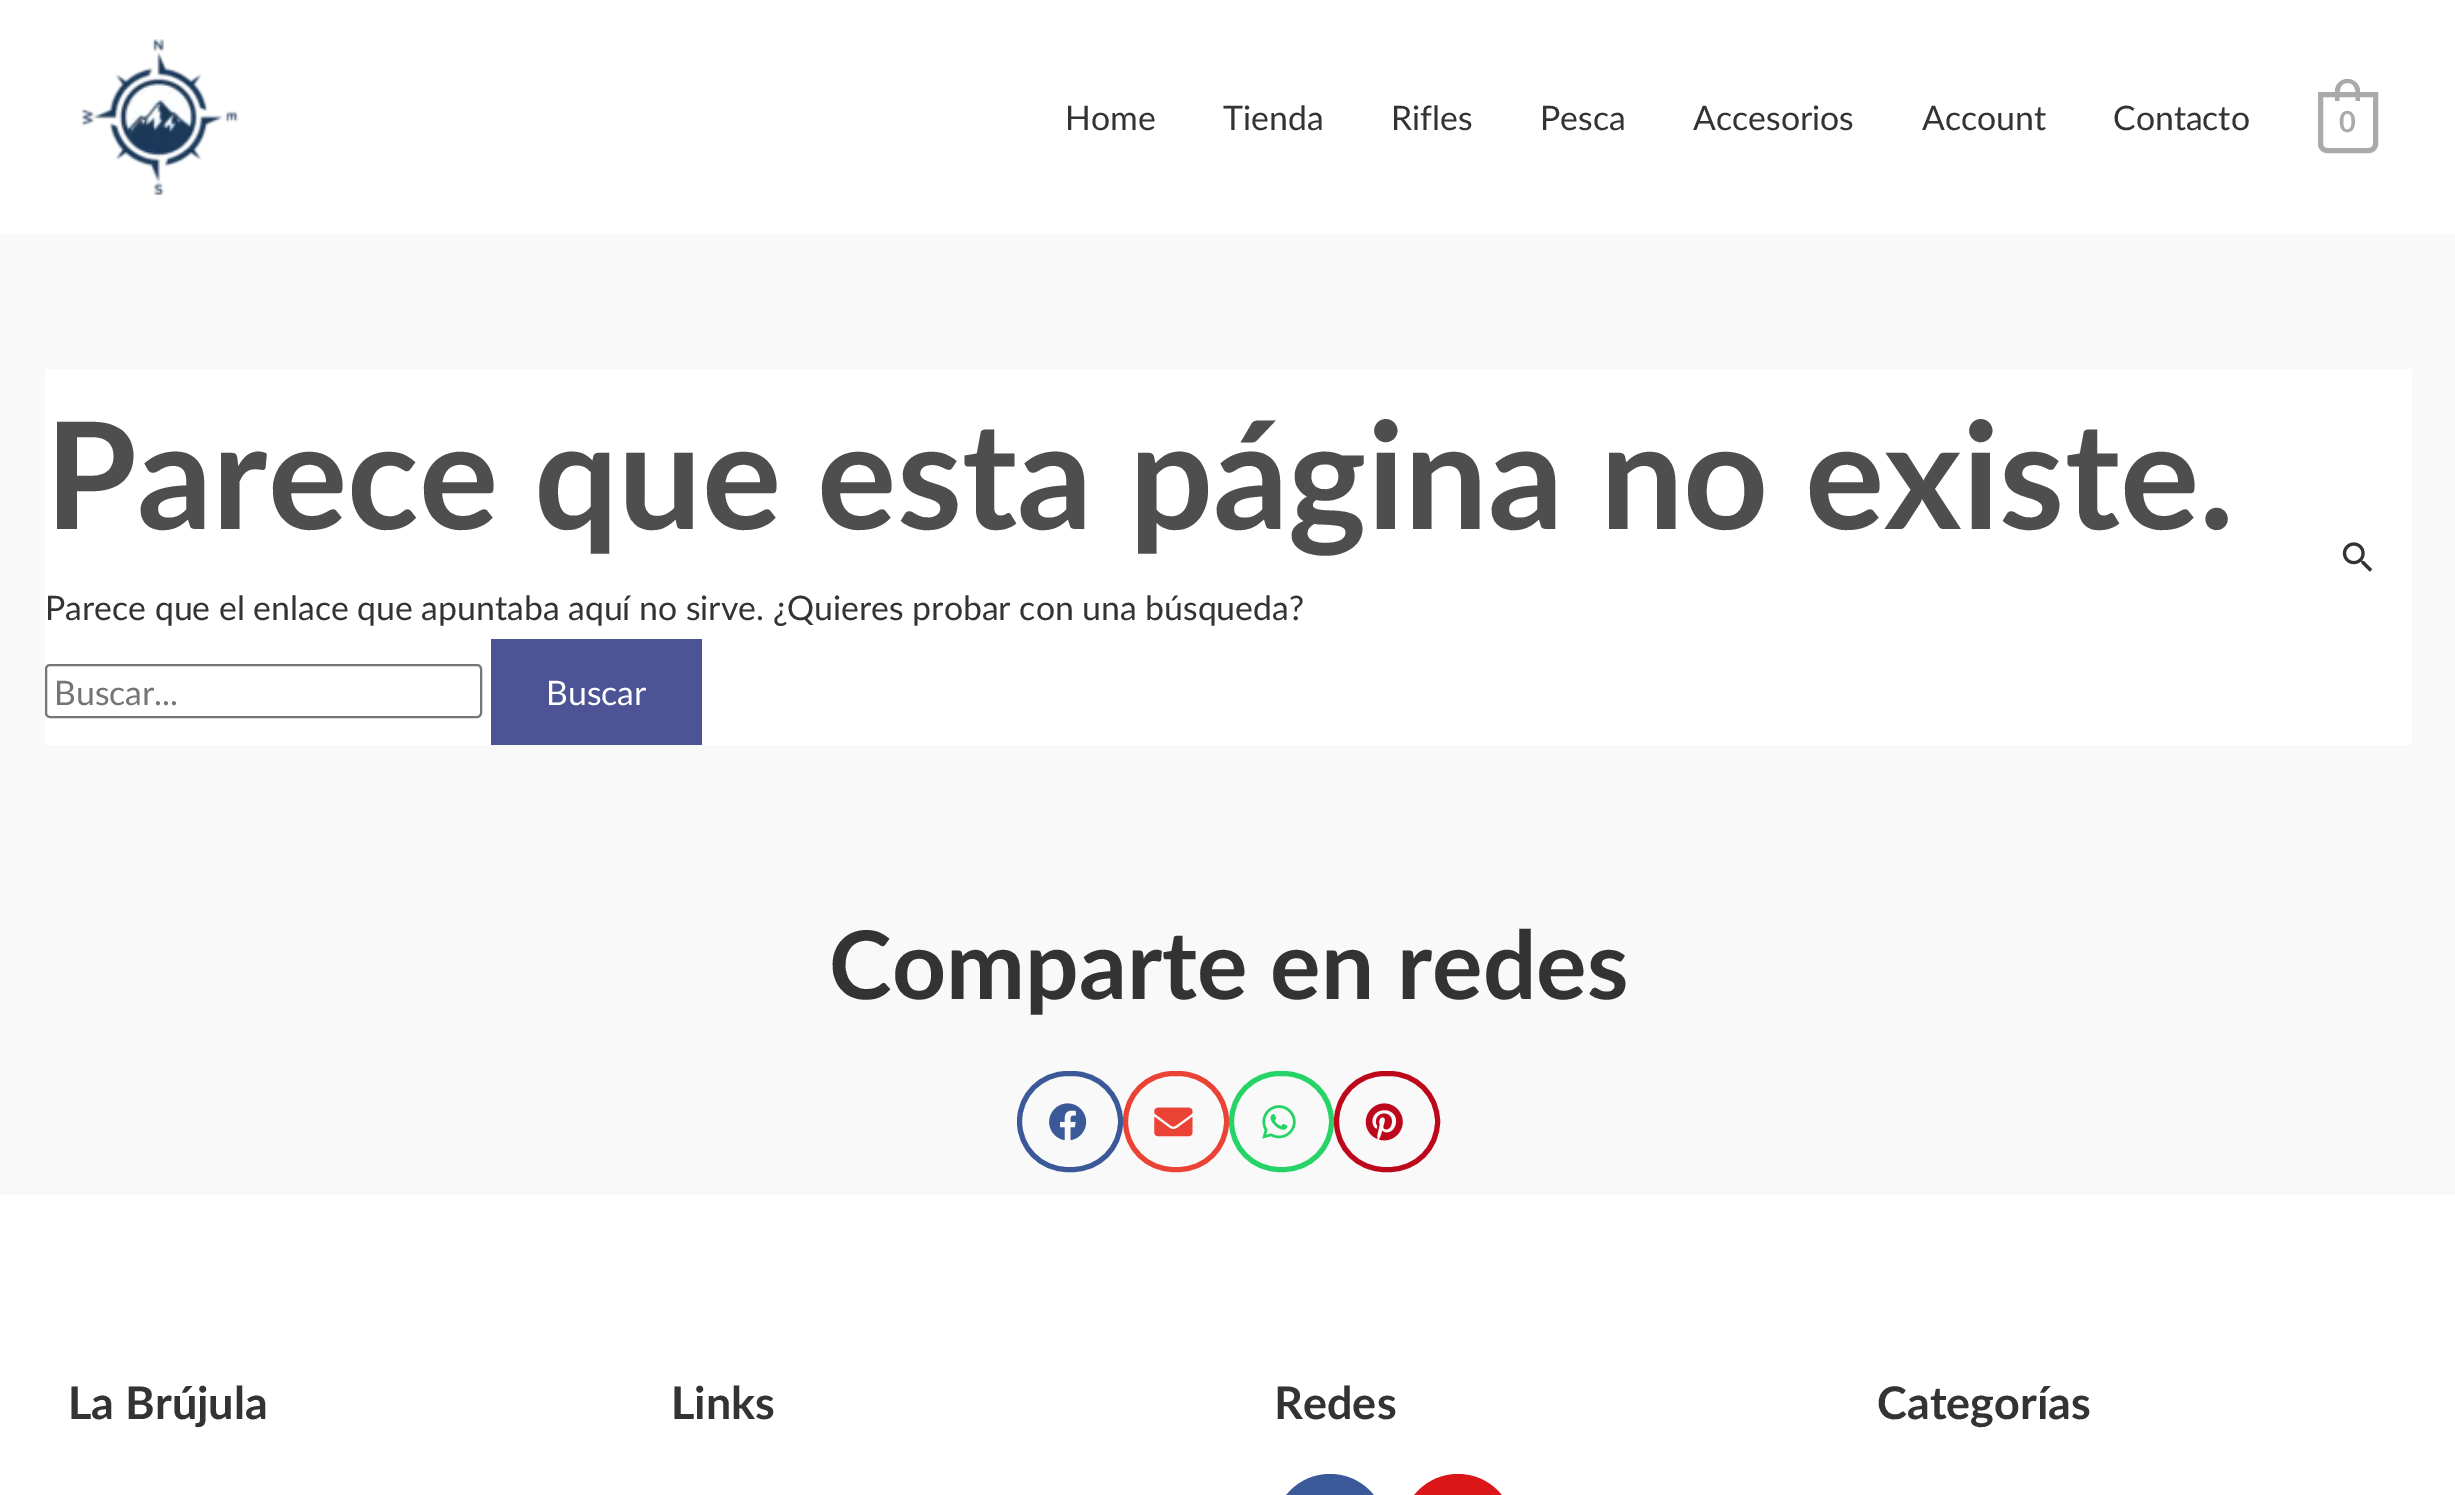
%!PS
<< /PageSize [2455 1495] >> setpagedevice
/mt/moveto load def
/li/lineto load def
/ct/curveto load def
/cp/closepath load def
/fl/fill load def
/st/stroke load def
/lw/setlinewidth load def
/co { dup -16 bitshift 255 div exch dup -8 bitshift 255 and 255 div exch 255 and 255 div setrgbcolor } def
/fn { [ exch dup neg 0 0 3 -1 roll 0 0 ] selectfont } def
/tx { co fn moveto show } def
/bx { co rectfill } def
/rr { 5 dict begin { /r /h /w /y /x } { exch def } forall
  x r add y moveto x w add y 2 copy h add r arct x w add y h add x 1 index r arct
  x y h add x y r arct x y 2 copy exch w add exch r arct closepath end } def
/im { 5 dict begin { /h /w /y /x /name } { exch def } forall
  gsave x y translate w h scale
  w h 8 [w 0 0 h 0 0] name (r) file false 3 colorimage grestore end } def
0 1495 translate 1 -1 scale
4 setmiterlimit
0 0 2455 1495 16#F9F9F9 bx
0 0 2455 234 16#FFFFFF bx
(media/1.raw) 81 39 158 158 im
16#AAAAAA co
5 lw
2320.5 94.5 mt 2375.5 94.5 li 2375.5 144 li 2375.5 147.5 2372.5 150.5 2369 150.5 ct 2327 150.5 li 2323.5 150.5 2320.5 147.5 2320.5 144 ct cp st
2347.5 79 mt 2354.5 79 2360 84.5 2360 91 ct 2360 101 li 2335 101 li 2335 91 li 2335 84.5 2340.5 79 2347.5 79 ct cp 2347.5 83 mt 2357 83 2355.5 95 2355.5 101 ct 2339.5 101 li 2339.5 95 2338 83 2347.5 83 ct cp eofill
45 369 2367 376 16#FFFFFF bx
(media/2.raw) 2342 542 31 30 im
16#767676 co
2 lw
46 665 435 52 4 rr st
491 639 211 106 16#4D5495 bx
16#3B5998 co
5 lw
1019.5 1073.5 101 96 48 rr st
(media/3.raw) 1049 1103 38 38 im
16#EA4335 co
1125.5 1073.5 101 96 48 rr st
(media/4.raw) 1154 1107 39 30 im
16#25D366 co
1231.5 1073.5 100 96 48 rr st
(media/5.raw) 1262 1105 34 34 im
16#BD081C co
1336.5 1073.5 101 96 48 rr st
(media/6.raw) 1365 1103 38 38 im
0 1195 2455 300 16#FFFFFF bx
16#3B5998 co
1274 1474 112 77 56 rr fl
16#DB1619 co
1402 1474 112 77 56 rr fl
(Home) 1065 130 /Lato-Regular 33.75 16#333333 tx
(Tienda) 1223 130 /Lato-Regular 33.75 16#333333 tx
(Rifles) 1391 130 /Lato-Regular 33.75 16#333333 tx
(Pesca) 1540 130 /Lato-Regular 33.75 16#333333 tx
(Accesorios) 1693 130 /Lato-Regular 33.75 16#333333 tx
(Account) 1922 130 /Lato-Regular 33.75 16#333333 tx
(Contacto) 2113 130 /Lato-Regular 33.75 16#333333 tx
(0) 2339 132 /Lato-Bold 29 16#AAAAAA tx
(Parece que esta página no existe.) 45 529 /Lato-Bold 148.5 16#4E4E4E tx
(Parece que el enlace que apuntaba aquí no sirve. ¿Quieres probar con una búsqueda?) 45 620 /Lato-Regular 33.75 16#333333 tx
(Buscar...) 54 705 /Lato-Regular 33.75 16#757575 tx
(Buscar) 546 705 /Lato-Regular 33.75 16#FFFFFF tx
(Comparte en redes) 829 999 /Lato-Bold 94.5 16#333333 tx
(La Brújula) 68 1419 /Lato-Bold 45 16#333333 tx
(Links) 671 1419 /Lato-Bold 45 16#333333 tx
(Redes) 1274 1419 /Lato-Bold 45 16#333333 tx
(Categorías) 1877 1419 /Lato-Bold 45 16#333333 tx
showpage
